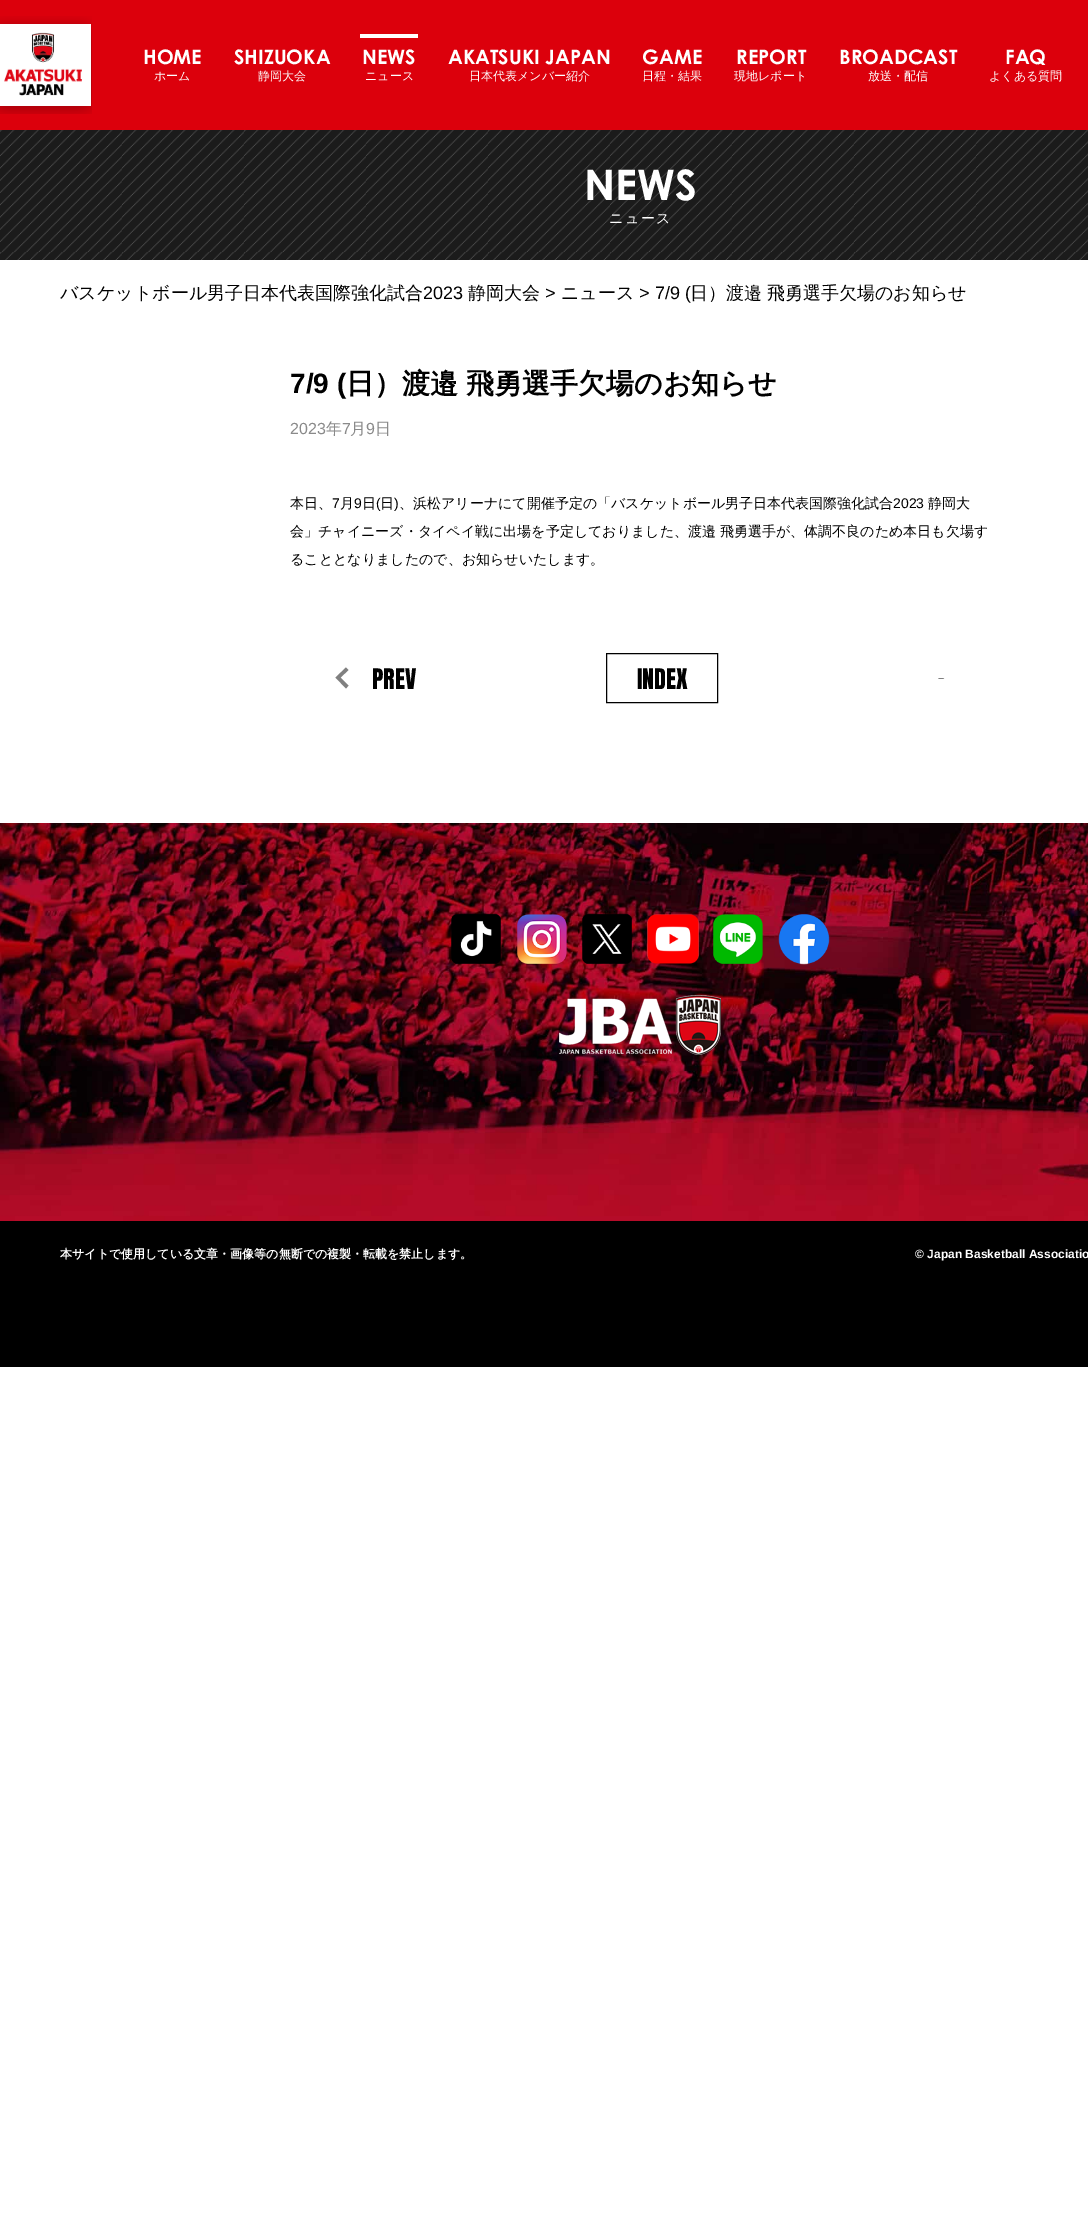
%!PS
<< /PageSize [1088 2216] >> setpagedevice
/mt/moveto load def
/li/lineto load def
/cp/closepath load def
/fl/fill load def
/gs/gsave load def
/gr/grestore load def
/co { dup -16 bitshift 255 div exch dup -8 bitshift 255 and 255 div exch 255 and 255 div setrgbcolor } def
/fn { [ exch dup neg 0 0 3 -1 roll 0 0 ] selectfont } def
/tx { co fn moveto show } def
/bx { co rectfill } def
/im { 5 dict begin { /h /w /y /x /name } { exch def } forall
  gsave x y translate w h scale
  w h 8 [w 0 0 h 0 0] name (r) file false 3 colorimage grestore end } def
0 2216 translate 1 -1 scale
4 setmiterlimit
0 0 1088 2216 16#FFFFFF bx
0 0 1088 130 16#DC000C bx
(media/1.raw) 0 16 92 98 im
360 34 58 4 16#FFFFFF bx
(media/2.raw) 0 130 1088 130 im
16#808080 co
335.5 677.5 mt 346 667.5 li 348.5 670 li 340.5 677.5 li 348.5 685.5 li 346 688.5 li cp fl
16#000000 co
606.5 653.5 111 49 rectstroke
gs
910 678 38 1 rectclip
16#808080 co
944.5 677.5 mt 934 667.5 li 931.5 670 li 939.5 677.5 li 931.5 685.5 li 934 688.5 li cp fl
gr
(media/3.raw) 0 823 1088 398 im
(media/4.raw) 451 913 50 51 im
(media/5.raw) 517 914 50 50 im
(media/6.raw) 582 913 50 51 im
(media/7.raw) 647 914 52 50 im
(media/8.raw) 713 914 50 50 im
(media/9.raw) 778 914 52 51 im
(media/10.raw) 559 995 162 60 im
0 1221 1088 146 16#000000 bx
(HOME) 143 64 /CenturyGothic-Bold 20 16#FFFFFF tx
(ホーム) 154 80 /WenQuanYiZenHei-Medium 12 16#FFFFFF tx
(SHIZUOKA) 234 64 /CenturyGothic-Bold 20 16#FFFFFF tx
(静岡大会) 258 80 /WenQuanYiZenHei-Medium 12 16#FFFFFF tx
(NEWS) 362 64 /CenturyGothic-Bold 20 16#FFFFFF tx
(ニュース) 365 80 /WenQuanYiZenHei-Medium 12 16#FFFFFF tx
(AKATSUKI JAPAN) 448 64 /CenturyGothic-Bold 20 16#FFFFFF tx
(日本代表メンバー紹介) 469 80 /WenQuanYiZenHei-Medium 12 16#FFFFFF tx
(GAME) 642 64 /CenturyGothic-Bold 20 16#FFFFFF tx
(日程・結果) 642 80 /WenQuanYiZenHei-Medium 12 16#FFFFFF tx
(REPORT) 736 64 /CenturyGothic-Bold 20 16#FFFFFF tx
(現地レポート) 734 80 /WenQuanYiZenHei-Medium 12 16#FFFFFF tx
(BROADCAST) 839 64 /CenturyGothic-Bold 20 16#FFFFFF tx
(放送・配信) 868 80 /WenQuanYiZenHei-Medium 12 16#FFFFFF tx
(FAQ) 1005 64 /CenturyGothic-Bold 20 16#FFFFFF tx
(よくある質問) 989 80 /WenQuanYiZenHei-Medium 12 16#FFFFFF tx
(NEWS) 584 200 /CenturyGothic-Bold 42 16#FFFFFF tx
/WenQuanYiZenHei-Medium 14 fn
609 223 mt 1.5 0 (ニュース) ashow
(バスケットボール男子日本代表国際強化試合) 60 299 /WenQuanYiZenHei-Medium 18 16#000000 tx
(2023) 423 299 /LiberationSans-Regular 18 16#000000 tx
(静岡大会) 468 299 /WenQuanYiZenHei-Medium 18 16#000000 tx
(>) 545 299 /LiberationSans-Regular 18 16#000000 tx
(ニュース) 561 299 /WenQuanYiZenHei-Medium 18 16#000000 tx
(> 7/9 \() 639 299 /LiberationSans-Regular 18 16#000000 tx
(日）渡邉) 690 299 /WenQuanYiZenHei-Medium 18 16#000000 tx
(飛勇選手欠場のお知らせ) 767 299 /WenQuanYiZenHei-Medium 18 16#000000 tx
(7/9 \() 290 393 /LiberationSans-Bold 28 16#000000 tx
(日）渡邉) 346 393 /WenQuanYiZenHei-Bold 28 16#000000 tx
(飛勇選手欠場のお知らせ) 466 393 /WenQuanYiZenHei-Bold 28 16#000000 tx
(2023) 290 434 /LiberationSans-Regular 16 16#8A8A8A tx
(年) 326 434 /WenQuanYiZenHei-Medium 16 16#8A8A8A tx
(7) 342 434 /LiberationSans-Regular 16 16#8A8A8A tx
(月) 350 434 /WenQuanYiZenHei-Medium 16 16#8A8A8A tx
(9) 366 434 /LiberationSans-Regular 16 16#8A8A8A tx
(日) 375 434 /WenQuanYiZenHei-Medium 16 16#8A8A8A tx
(本日、) 290 508 /WenQuanYiZenHei-Medium 14 16#000000 tx
(7) 332 508 /LiberationSans-Regular 14 16#000000 tx
(月) 340 508 /WenQuanYiZenHei-Medium 14 16#000000 tx
(9) 354 508 /LiberationSans-Regular 14 16#000000 tx
(日) 362 508 /WenQuanYiZenHei-Medium 14 16#000000 tx
(\() 376 508 /LiberationSans-Regular 14 16#000000 tx
(日) 380 508 /WenQuanYiZenHei-Medium 14 16#000000 tx
(\)) 394 508 /LiberationSans-Regular 14 16#000000 tx
(、浜松アリーナにて開催予定の「バスケットボール男子日本代表国際強化試合) 399 508 /WenQuanYiZenHei-Medium 14 16#000000 tx
(2023) 893 508 /LiberationSans-Regular 14 16#000000 tx
(静岡大) 928 508 /WenQuanYiZenHei-Medium 14 16#000000 tx
(会」チャイニーズ・タイペイ戦に出場を予定しておりました、渡邉 飛勇選手が、体調不良のため本日も欠場す) 290 536 /WenQuanYiZenHei-Medium 14 16#000000 tx
(ることとなりましたので、お知らせいたします。) 290 564 /WenQuanYiZenHei-Medium 14 16#000000 tx
(PREV) 372 689 /Anton-Regular 24 16#000000 tx
(INDEX) 637 689 /Anton-Regular 24 16#000000 tx
(本サイトで使用している文章・画像等の無断での複製・転載を禁止します。) 60 1258 /WenQuanYiZenHei-Bold 12 16#FFFFFF tx
(© Japan Basketball Associatio) 915 1258 /LiberationSans-Bold 12 16#FFFFFF tx
showpage
